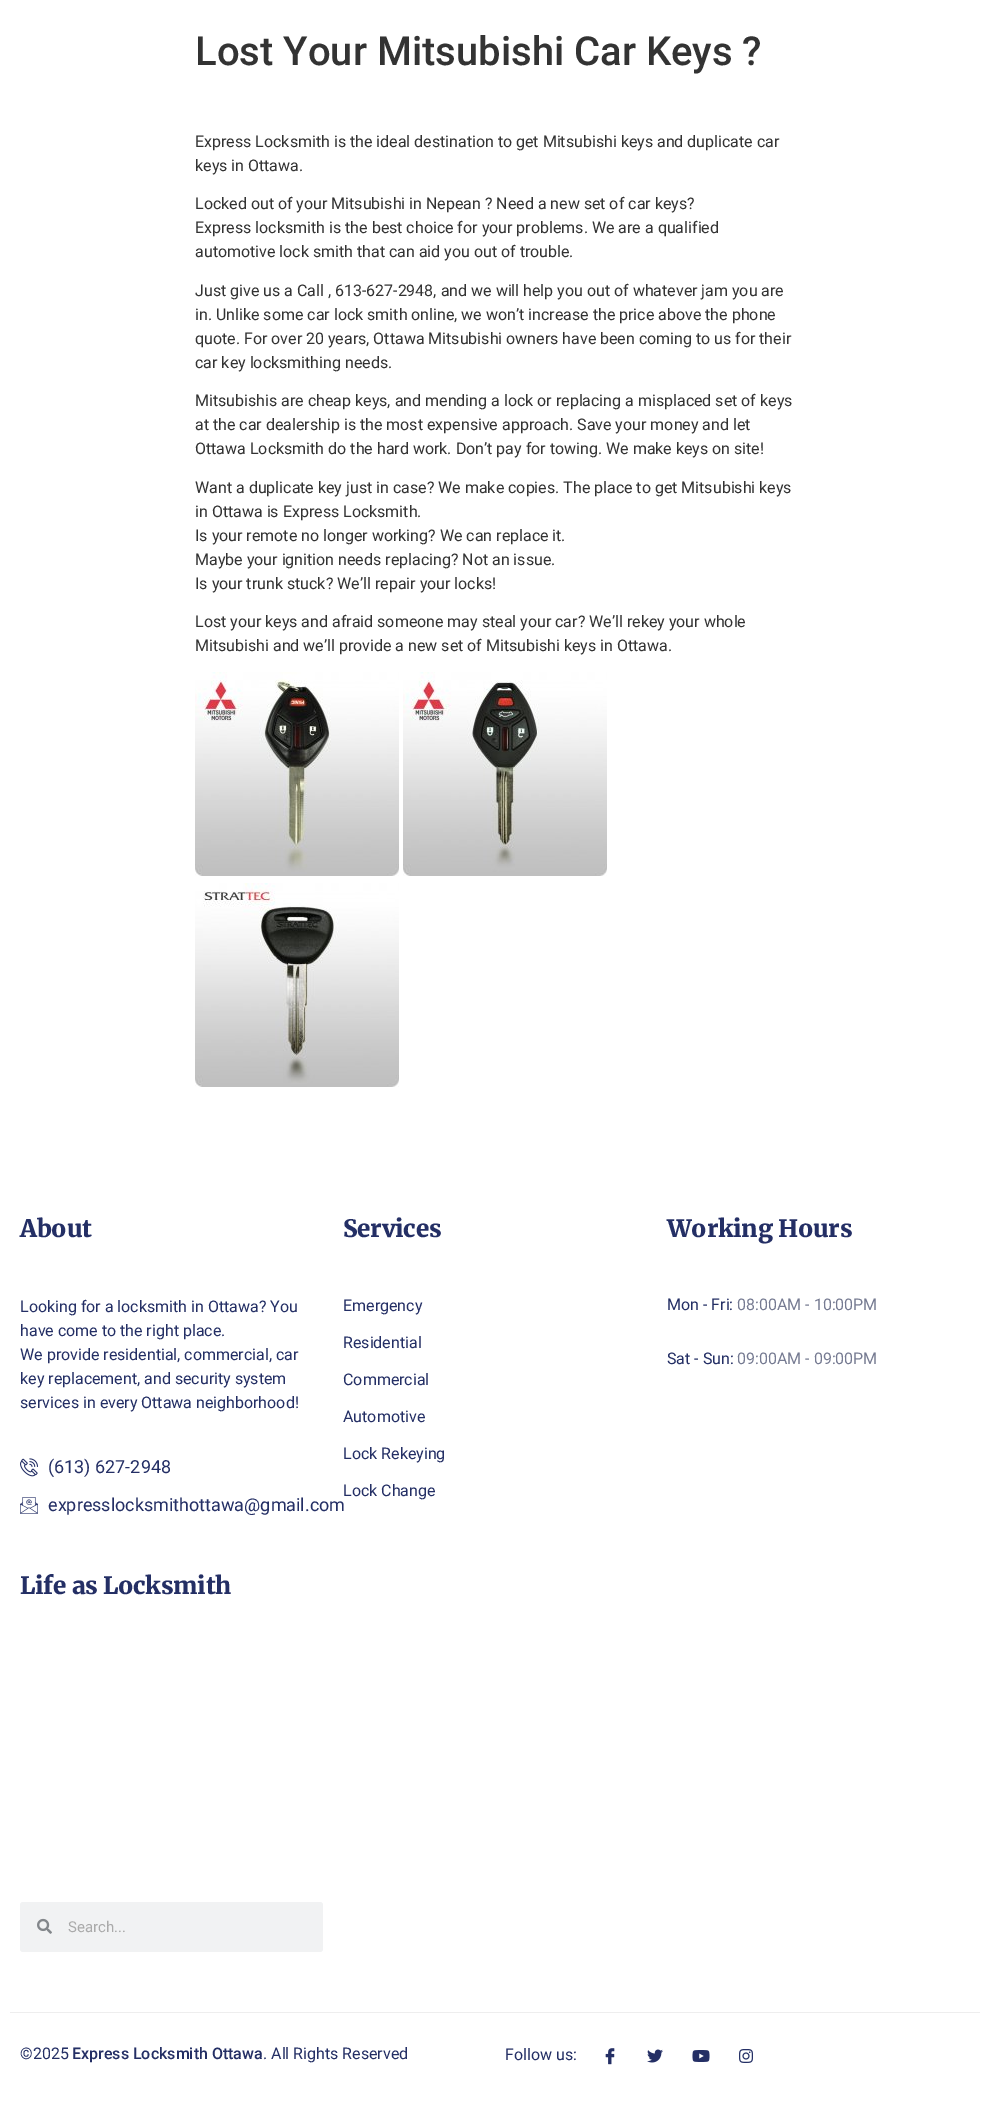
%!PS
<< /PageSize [990 2104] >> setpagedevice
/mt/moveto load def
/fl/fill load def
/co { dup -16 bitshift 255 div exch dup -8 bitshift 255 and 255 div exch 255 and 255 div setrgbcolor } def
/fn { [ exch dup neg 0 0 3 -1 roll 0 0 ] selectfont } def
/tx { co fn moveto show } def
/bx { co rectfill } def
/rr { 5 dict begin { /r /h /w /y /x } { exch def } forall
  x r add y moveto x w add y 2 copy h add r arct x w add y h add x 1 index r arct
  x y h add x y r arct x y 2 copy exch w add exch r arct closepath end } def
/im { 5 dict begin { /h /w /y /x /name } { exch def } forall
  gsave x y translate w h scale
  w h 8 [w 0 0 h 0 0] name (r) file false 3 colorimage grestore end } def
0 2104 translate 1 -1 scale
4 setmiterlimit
0 0 990 2104 16#FFFFFF bx
(media/1.raw) 195 672 204 204 im
(media/2.raw) 403 672 204 204 im
(media/3.raw) 195 883 204 204 im
(media/4.raw) 20 1458 18 19 im
(media/5.raw) 20 1497 18 17 im
16#F1F2F3 co
20 1902 303 50 3 rr fl
(media/6.raw) 37 1918 15 16 im
10 2012 970 1 16#EEEEEE bx
(media/7.raw) 605 2048 10 17 im
(media/8.raw) 647 2049 16 14 im
(media/9.raw) 692 2050 18 12 im
(media/10.raw) 739 2049 14 14 im
(Lost Your Mitsubishi Car Keys ?) 195 65 /Roboto-Medium 40 16#333333 tx
(Express Locksmith is the ideal destination to get Mitsubishi keys and duplicate car) 195 147 /Roboto-Regular 16 16#333333 tx
(keys in Ottawa.) 195 171 /Roboto-Regular 16 16#333333 tx
(Locked out of your Mitsubishi in Nepean ? Need a new set of car keys?) 195 209 /Roboto-Regular 16 16#333333 tx
(Express locksmith is the best choice for your problems. We are a qualified) 195 233 /Roboto-Regular 16 16#333333 tx
(automotive lock smith that can aid you out of trouble.) 195 257 /Roboto-Regular 16 16#333333 tx
(Just give us a Call , 613-627-2948, and we will help you out of whatever jam you are) 195 296 /Roboto-Regular 16 16#333333 tx
(in. Unlike some car lock smith online, we won’t increase the price above the phone) 195 320 /Roboto-Regular 16 16#333333 tx
(quote. For over 20 years, Ottawa Mitsubishi owners have been coming to us for their) 195 344 /Roboto-Regular 16 16#333333 tx
(car key locksmithing needs.) 195 368 /Roboto-Regular 16 16#333333 tx
(Mitsubishis are cheap keys, and mending a lock or replacing a misplaced set of keys) 195 406 /Roboto-Regular 16 16#333333 tx
(at the car dealership is the most expensive approach. Save your money and let) 195 430 /Roboto-Regular 16 16#333333 tx
(Ottawa Locksmith do the hard work. Don’t pay for towing. We make keys on site!) 195 454 /Roboto-Regular 16 16#333333 tx
(Want a duplicate key just in case? We make copies. The place to get Mitsubishi keys) 195 493 /Roboto-Regular 16 16#333333 tx
(in Ottawa is Express Locksmith.) 195 517 /Roboto-Regular 16 16#333333 tx
(Is your remote no longer working? We can replace it.) 195 541 /Roboto-Regular 16 16#333333 tx
(Maybe your ignition needs replacing? Not an issue.) 195 565 /Roboto-Regular 16 16#333333 tx
(Is your trunk stuck? We’ll repair your locks!) 195 589 /Roboto-Regular 16 16#333333 tx
(Lost your keys and afraid someone may steal your car? We’ll rekey your whole) 195 627 /Roboto-Regular 16 16#333333 tx
(Mitsubishi and we’ll provide a new set of Mitsubishi keys in Ottawa.) 195 651 /Roboto-Regular 16 16#333333 tx
/Merriweather-Black 24 fn
16#242F65 co
20 1237 mt -.25 0 (About) ashow
(Looking for a locksmith in Ottawa? You) 20 1312 /Roboto-Regular 16 16#242F65 tx
(have come to the right place.) 20 1336 /Roboto-Regular 16 16#242F65 tx
(We provide residential, commercial, car) 20 1360 /Roboto-Regular 16 16#242F65 tx
(key replacement, and security system) 20 1384 /Roboto-Regular 16 16#242F65 tx
(services in every Ottawa neighborhood!) 20 1408 /Roboto-Regular 16 16#242F65 tx
(\(613\) 627-2948) 48 1473 /Roboto-Regular 18 16#242F65 tx
(expresslocksmithottawa@gmail.com) 48 1511 /Roboto-Regular 18 16#242F65 tx
/Merriweather-Black 24 fn
343 1237 mt -.25 0 (Services) ashow
(Emergency) 343 1311 /Roboto-Regular 16 16#242F65 tx
(Residential) 343 1348 /Roboto-Regular 16 16#242F65 tx
(Commercial) 343 1385 /Roboto-Regular 16 16#242F65 tx
(Automotive) 343 1422 /Roboto-Regular 16 16#242F65 tx
(Lock Rekeying) 343 1459 /Roboto-Regular 16 16#242F65 tx
(Lock Change) 343 1496 /Roboto-Regular 16 16#242F65 tx
/Merriweather-Black 24 fn
667 1237 mt -.25 0 (Working Hours) ashow
(Mon - Fri:) 667 1310 /Roboto-Regular 16 16#242F65 tx
(08:00AM - 10:00PM) 737 1310 /Roboto-Regular 16 16#767B92 tx
(Sat - Sun:) 667 1364 /Roboto-Regular 16 16#242F65 tx
(09:00AM - 09:00PM) 737 1364 /Roboto-Regular 16 16#767B92 tx
/Merriweather-Black 24 fn
16#242F65 co
20 1594 mt -.25 0 (Life as Locksmith) ashow
(Search...) 68 1932 /Roboto-Regular 15 16#AAAAAA tx
(©2025) 20 2059 /Roboto-Regular 16 16#242F65 tx
(Express Locksmith Ottawa) 72 2059 /Roboto-Medium 16 16#242F65 tx
(. All Rights Reserved) 263 2059 /Roboto-Regular 16 16#242F65 tx
(Follow us:) 505 2060 /Roboto-Regular 16 16#242F65 tx
showpage
